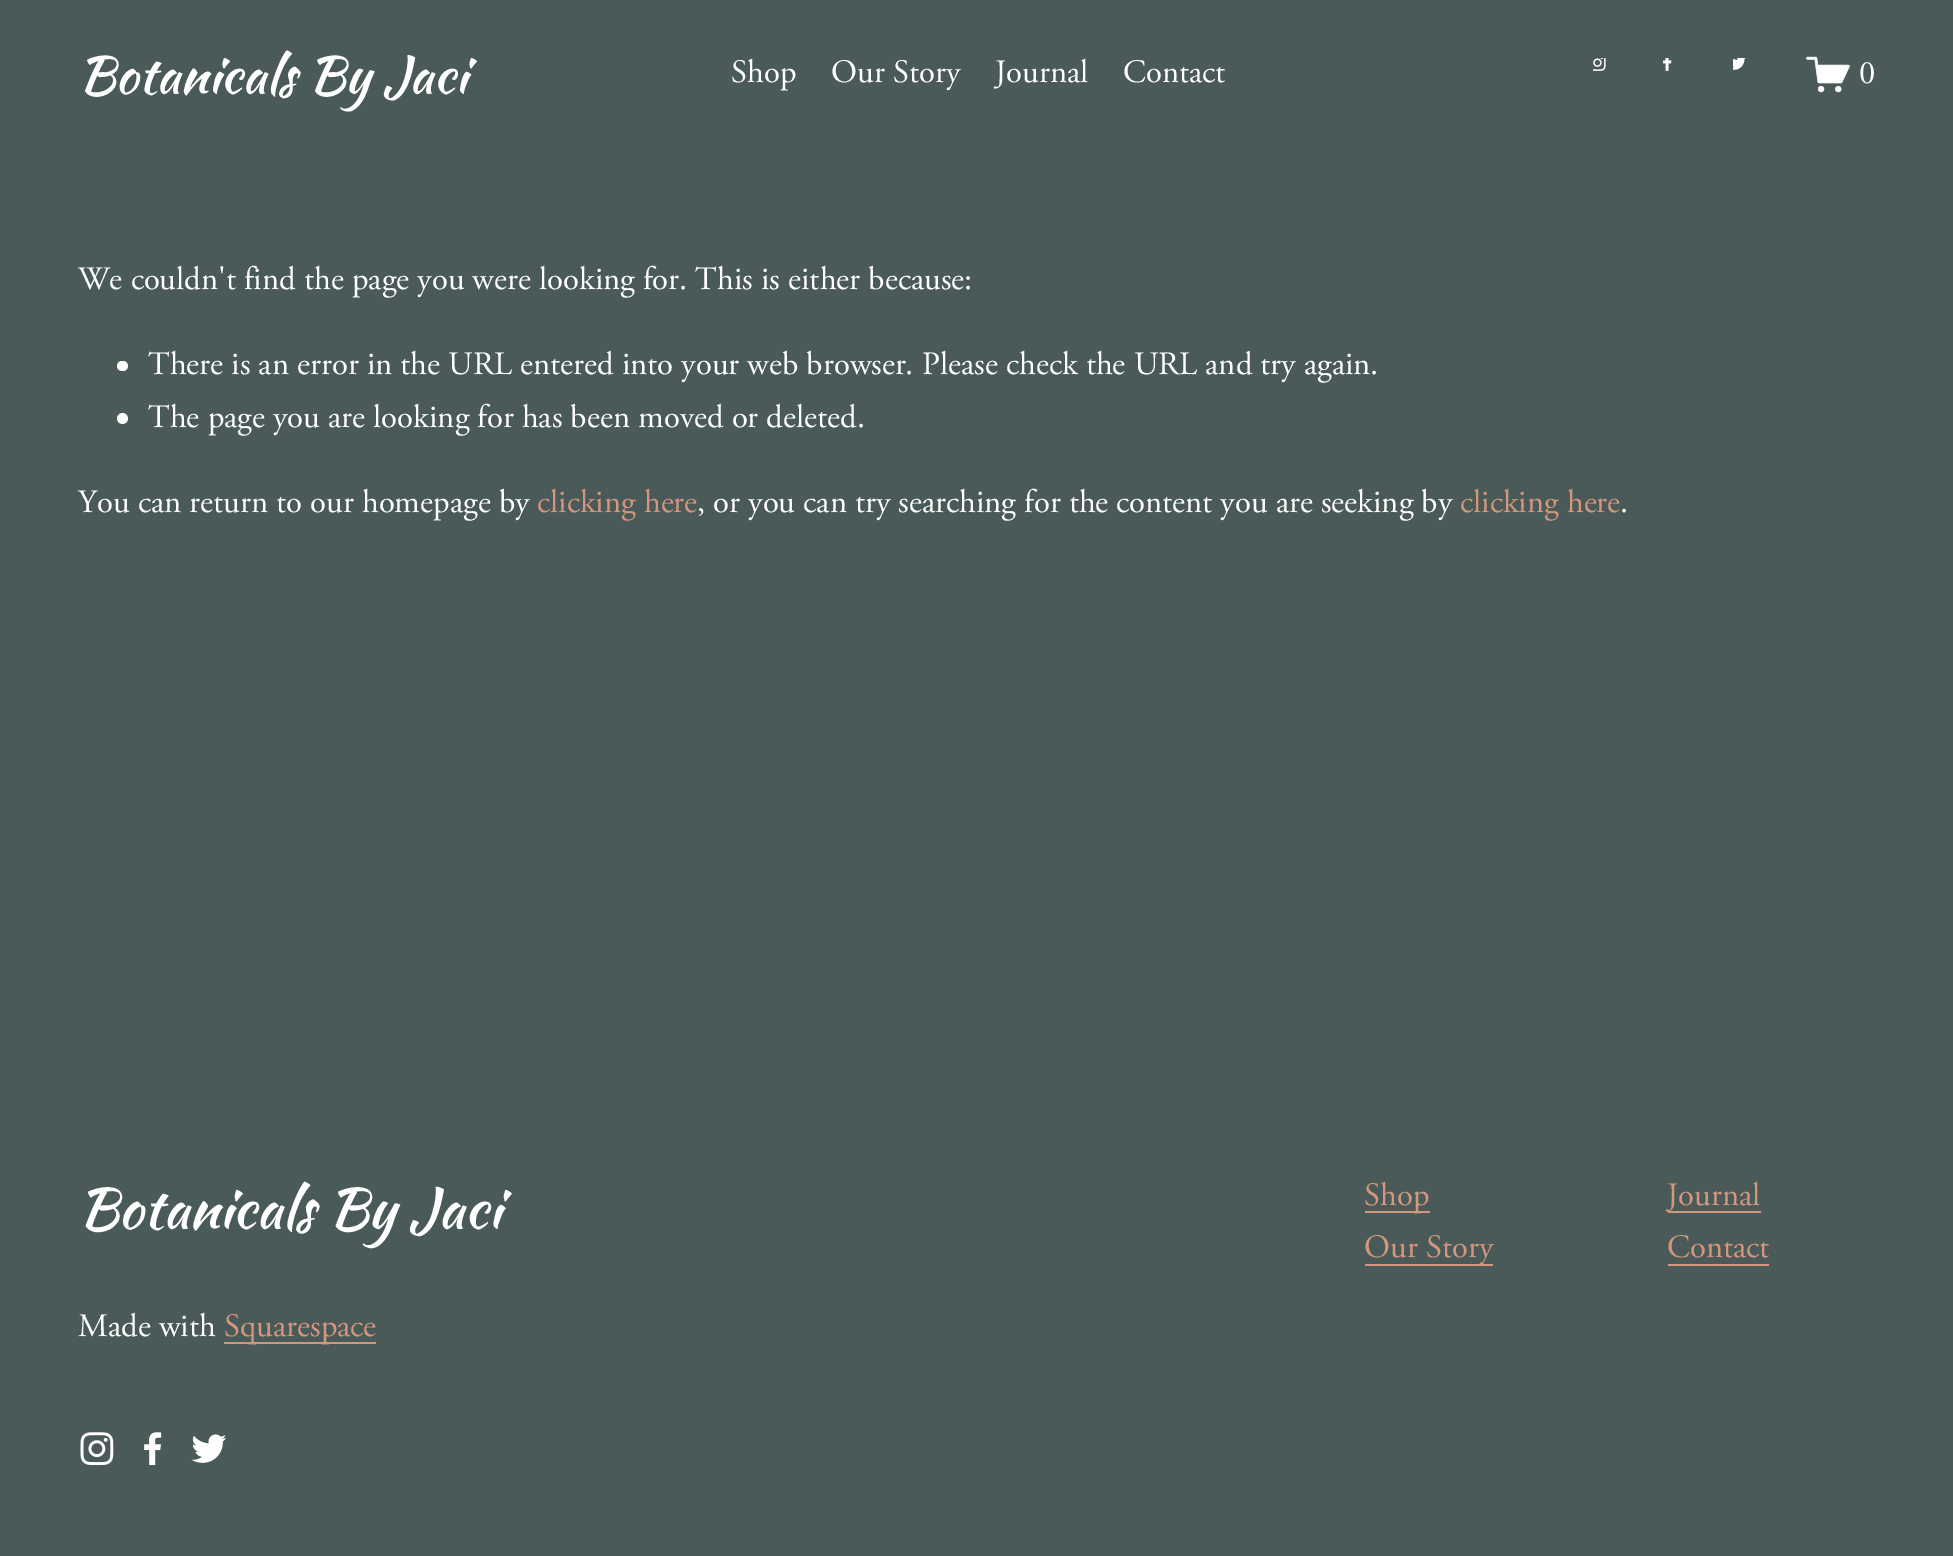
%!PS
<< /PageSize [1953 1556] >> setpagedevice
/fl/fill load def
/co { dup -16 bitshift 255 div exch dup -8 bitshift 255 and 255 div exch 255 and 255 div setrgbcolor } def
/fn { [ exch dup neg 0 0 3 -1 roll 0 0 ] selectfont } def
/tx { co fn moveto show } def
/bx { co rectfill } def
/ci { newpath 0 360 arc closepath } def
/rr { 5 dict begin { /r /h /w /y /x } { exch def } forall
  x r add y moveto x w add y 2 copy h add r arct x w add y h add x 1 index r arct
  x y h add x y r arct x y 2 copy exch w add exch r arct closepath end } def
/im { 5 dict begin { /h /w /y /x /name } { exch def } forall
  gsave x y translate w h scale
  w h 8 [w 0 0 h 0 0] name (r) file false 3 colorimage grestore end } def
0 1556 translate 1 -1 scale
4 setmiterlimit
0 0 1953 1556 16#495A58 bx
(media/1.raw) 1593 58 13 13 im
(media/2.raw) 1663 58 9 13 im
(media/3.raw) 1733 58 13 12 im
(media/4.raw) 1806 56 44 37 im
16#FFFFFF co
117 361 11 10 5 rr fl
122.5 418.5 5.5 ci fl
224 1342 152 2 16#D4967D bx
1365 1211 65 2 16#D4967D bx
1365 1264 128 2 16#D4967D bx
1668 1211 93 2 16#D4967D bx
1668 1264 101 2 16#D4967D bx
(media/5.raw) 80 1432 34 34 im
(media/6.raw) 144 1432 18 34 im
(media/7.raw) 191 1434 35 29 im
(Botanicals By Jaci) 78 93 /KaushanScript-Regular 51.5 16#FFFFFF tx
(Shop) 731 82 /AdobeGaramond-Regular 32.7 16#FFFFFF tx
(Our Story) 831 82 /AdobeGaramond-Regular 32.7 16#FFFFFF tx
(Journal) 995 82 /AdobeGaramond-Regular 32.7 16#FFFFFF tx
(Contact) 1123 82 /AdobeGaramond-Regular 32.7 16#FFFFFF tx
(0) 1859 83 /AdobeGaramond-Regular 32.7 16#FFFFFF tx
(We couldn't find the page you were looking for. This is either because:) 78 289 /AdobeGaramond-Regular 32.7 16#FFFFFF tx
(There is an error in the URL entered into your web browser. Please check the URL and try again.) 148 374 /AdobeGaramond-Regular 32.7 16#FFFFFF tx
(The page you are looking for has been moved or deleted.) 148 427 /AdobeGaramond-Regular 32.7 16#FFFFFF tx
(You can return to our homepage by) 78 512 /AdobeGaramond-Regular 32.7 16#FFFFFF tx
(clicking here) 537 512 /AdobeGaramond-Regular 32.7 16#D4967D tx
(, or you can try searching for the) 697 512 /AdobeGaramond-Regular 32.7 16#FFFFFF tx
(content you are seeking by) 1116 512 /AdobeGaramond-Regular 32.7 16#FFFFFF tx
(clicking here) 1460 512 /AdobeGaramond-Regular 32.7 16#D4967D tx
(.) 1620 512 /AdobeGaramond-Regular 32.7 16#FFFFFF tx
(Botanicals By Jaci) 78 1228 /KaushanScript-Regular 56 16#FFFFFF tx
(Made with) 78 1336 /AdobeGaramond-Regular 32.7 16#FFFFFF tx
(Squarespace) 224 1336 /AdobeGaramond-Regular 32.7 16#D4967D tx
(Shop) 1364 1205 /AdobeGaramond-Regular 32.7 16#D4967D tx
(Our Story) 1364 1257 /AdobeGaramond-Regular 32.7 16#D4967D tx
(Journal) 1667 1205 /AdobeGaramond-Regular 32.7 16#D4967D tx
(Contact) 1667 1257 /AdobeGaramond-Regular 32.7 16#D4967D tx
showpage
